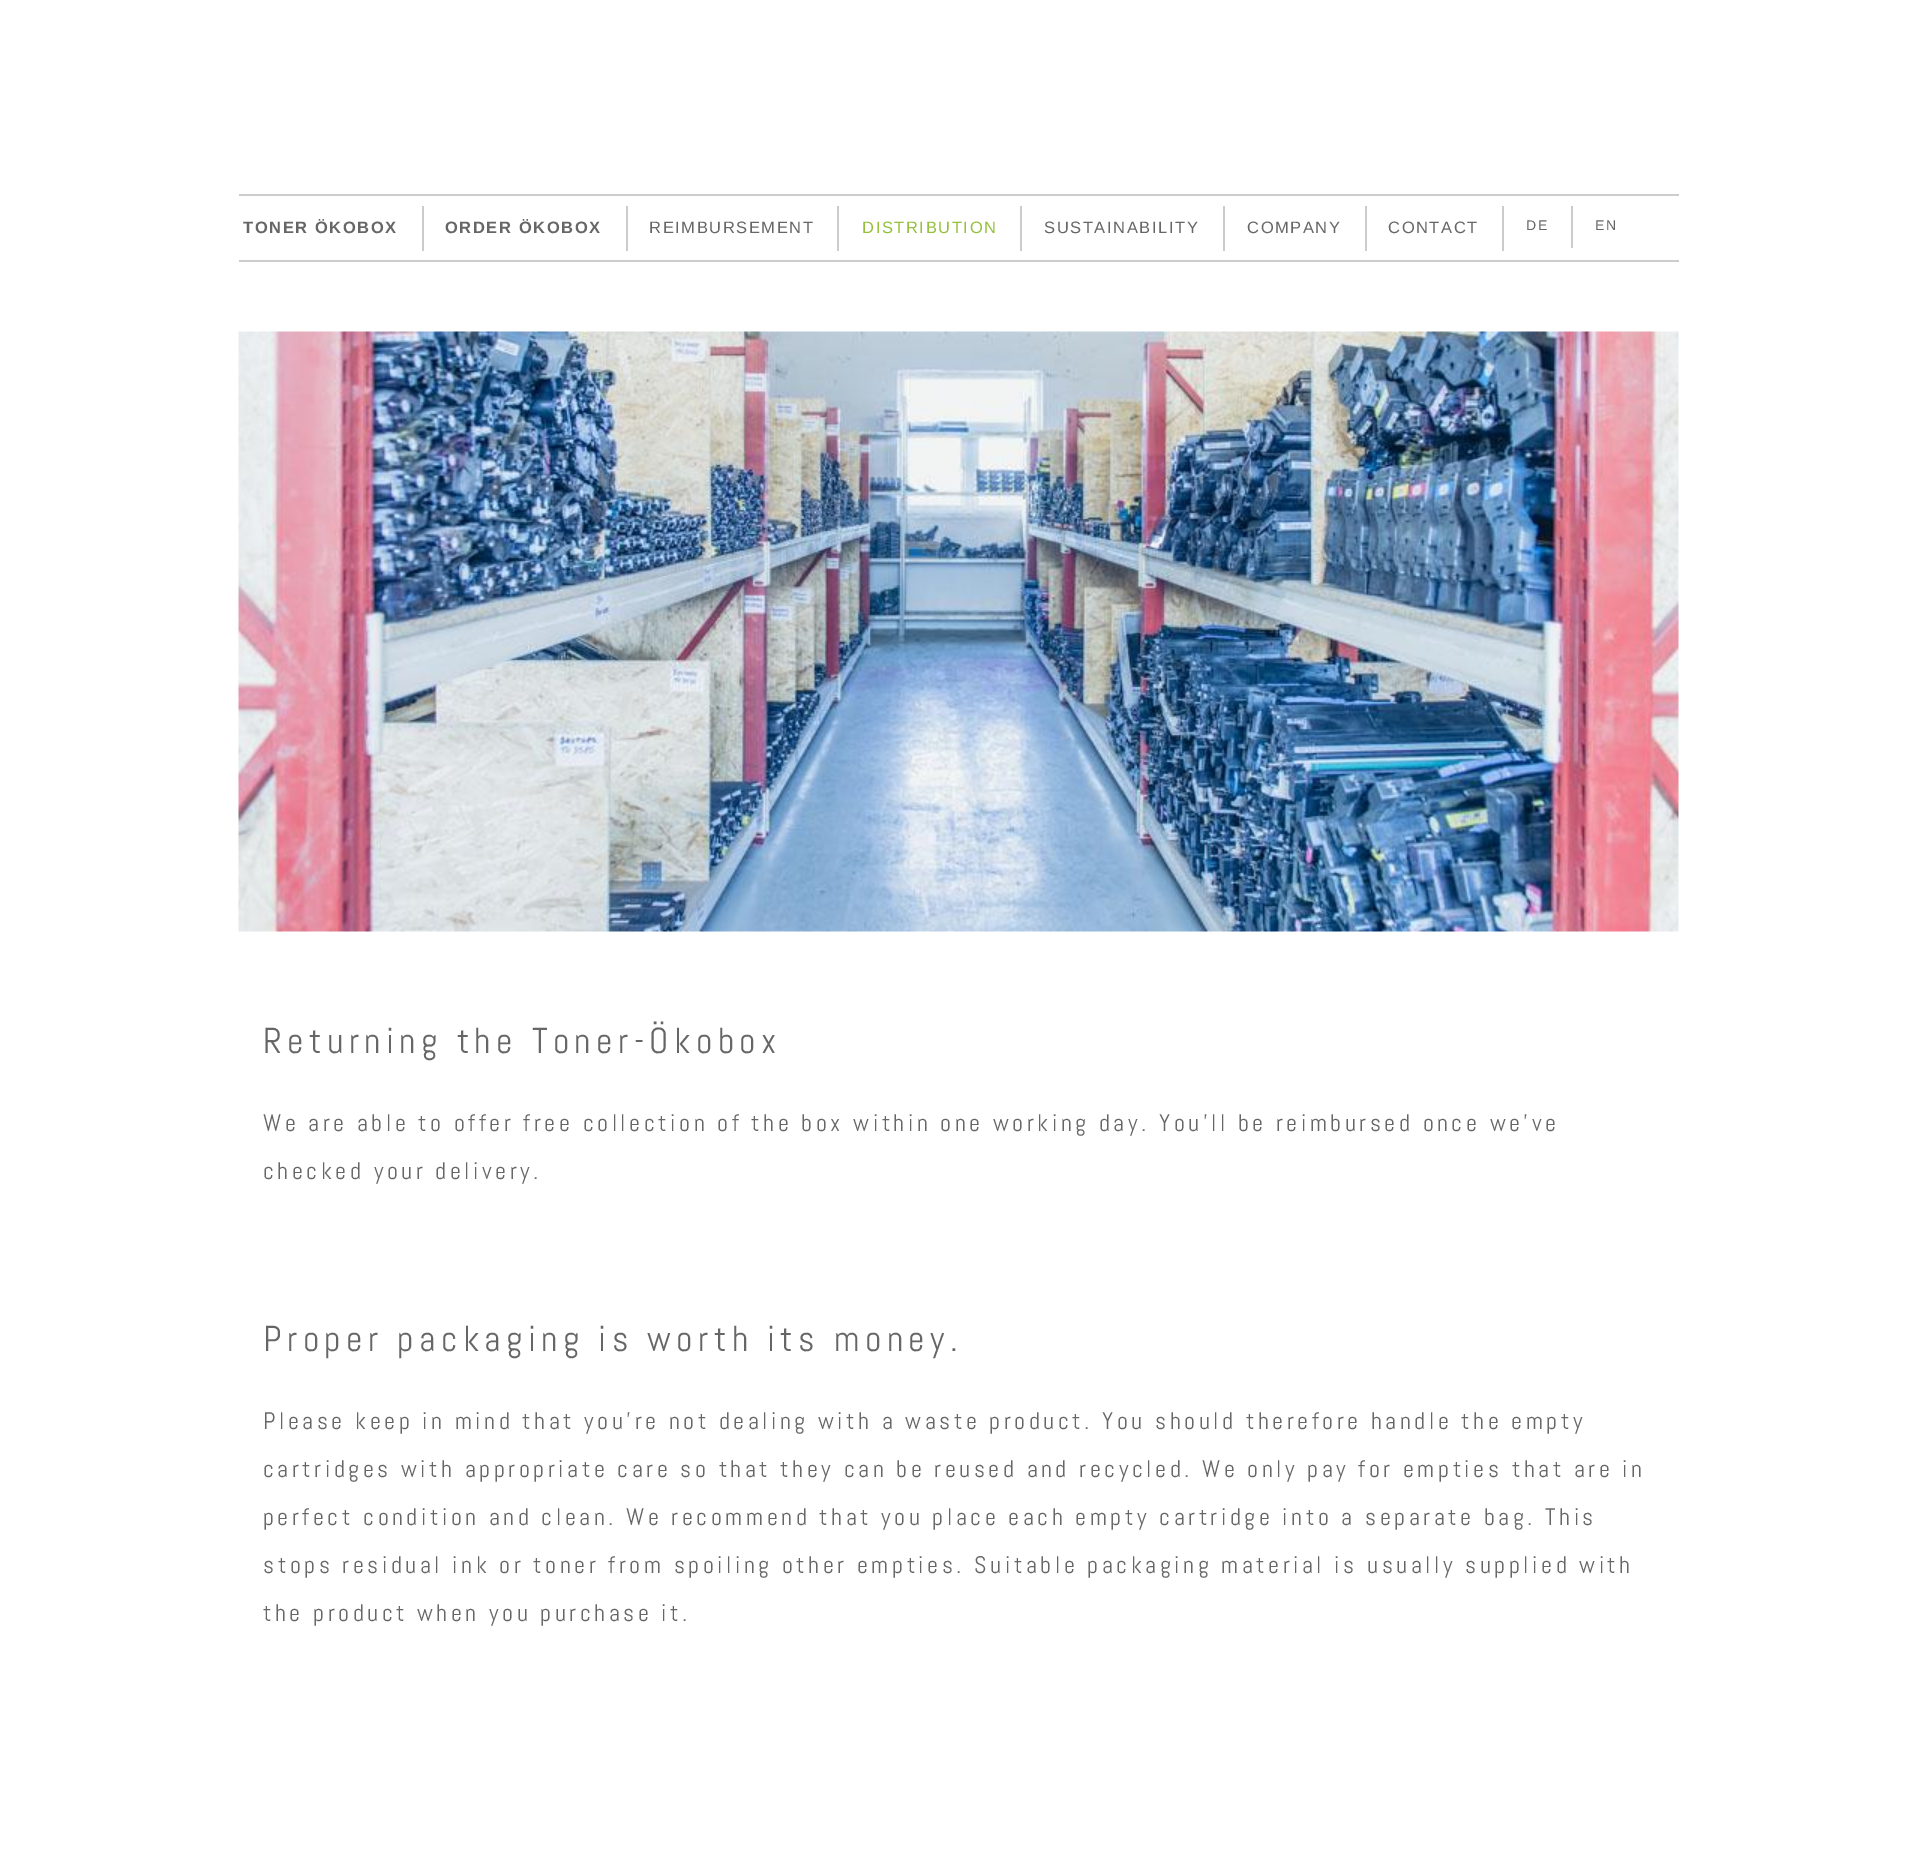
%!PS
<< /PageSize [1916 1858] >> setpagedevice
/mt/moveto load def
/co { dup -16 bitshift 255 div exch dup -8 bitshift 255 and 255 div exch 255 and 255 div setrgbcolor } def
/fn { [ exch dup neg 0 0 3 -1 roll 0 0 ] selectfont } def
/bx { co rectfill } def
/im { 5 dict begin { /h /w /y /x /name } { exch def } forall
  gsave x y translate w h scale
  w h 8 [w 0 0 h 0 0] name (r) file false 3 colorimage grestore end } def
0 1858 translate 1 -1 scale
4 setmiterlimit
0 0 1916 1858 16#FFFFFF bx
239 194 1440 2 16#CCCCCC bx
422 206 2 45 16#CCCCCC bx
626 206 2 45 16#CCCCCC bx
837 206 2 45 16#CCCCCC bx
1020 206 2 45 16#CCCCCC bx
1223 206 2 45 16#CCCCCC bx
1365 206 2 45 16#CCCCCC bx
1502 206 2 45 16#CCCCCC bx
1571 206 2 42 16#CCCCCC bx
239 260 1440 2 16#CCCCCC bx
(media/1.raw) 238 331 1441 601 im
/LiberationSans-Bold 16.5 fn
16#666666 co
243 233 mt 1.6 0 (TONER ÖKOBOX) ashow
445 233 mt 1.6 0 (ORDER ÖKOBOX) ashow
/LiberationSans-Regular 16.5 fn
649 233 mt 1.6 0 (REIMBURSEMENT) ashow
16#95C03D co
862 233 mt 1.6 0 (DISTRIBUTION) ashow
16#666666 co
1044 233 mt 1.6 0 (SUSTAINABILITY) ashow
1247 233 mt 1.6 0 (COMPANY) ashow
1388 233 mt 1.6 0 (CONTACT) ashow
/LiberationSans-Regular 14 fn
1526 230 mt 1.6 0 (DE) ashow
1595 230 mt 1.6 0 (EN) ashow
/Abel-Regular 36 fn
263 1053 mt 5.4 0 (Returning the Toner-Ökobox) ashow
/Abel-Regular 24 fn
263 1131 mt 3.6 0 (We are able to offer free collection of the box within one working day. You’ll be reimbursed once we’ve) ashow
263 1179 mt 3.6 0 (checked your delivery.) ashow
/Abel-Regular 36 fn
263 1351 mt 5.4 0 (Proper packaging is worth its money.) ashow
/Abel-Regular 24 fn
263 1429 mt 3.6 0 (Please keep in mind that you’re not dealing with a waste product. You should therefore handle the empty) ashow
263 1477 mt 3.6 0 (cartridges with appropriate care so that they can be reused and recycled. We only pay for empties that are in) ashow
263 1525 mt 3.6 0 (perfect condition and clean. We recommend that you place each empty cartridge into a separate bag. This) ashow
263 1573 mt 3.6 0 (stops residual ink or toner from spoiling other empties. Suitable packaging material is usually supplied with) ashow
263 1621 mt 3.6 0 (the product when you purchase it.) ashow
showpage
